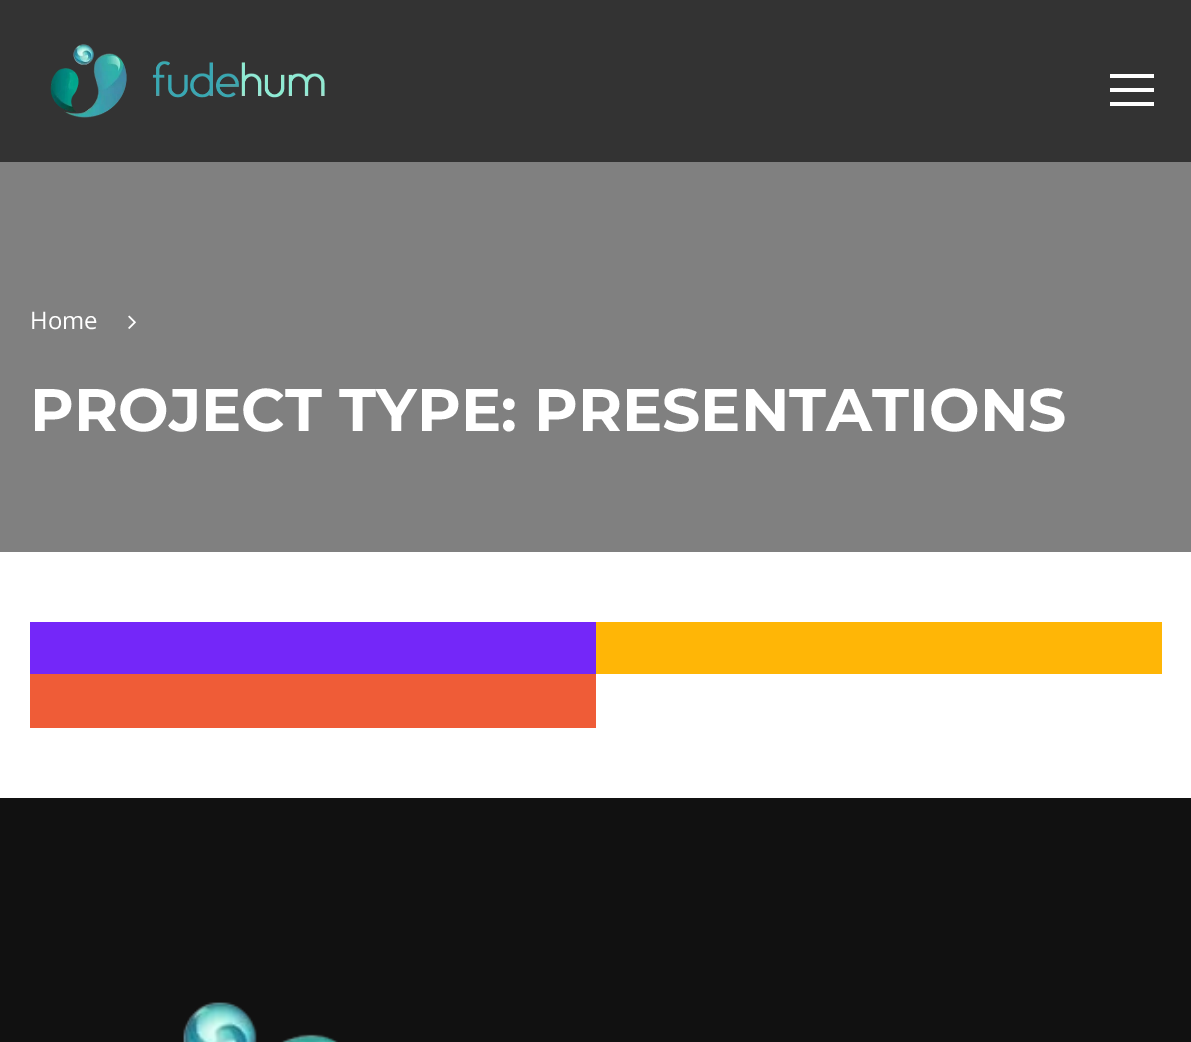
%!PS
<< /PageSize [1191 1042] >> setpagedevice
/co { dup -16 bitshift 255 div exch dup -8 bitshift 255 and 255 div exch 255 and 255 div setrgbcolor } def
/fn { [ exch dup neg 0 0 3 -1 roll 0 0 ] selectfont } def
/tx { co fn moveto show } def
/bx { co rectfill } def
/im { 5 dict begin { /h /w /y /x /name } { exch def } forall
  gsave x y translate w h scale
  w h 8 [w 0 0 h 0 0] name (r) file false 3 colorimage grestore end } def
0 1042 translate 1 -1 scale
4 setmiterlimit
0 0 1191 1042 16#FFFFFF bx
0 0 1191 162 16#333333 bx
(media/1.raw) 50 44 275 74 im
1110 74 44 4 16#FFFFFF bx
1110 88 44 4 16#FFFFFF bx
1110 102 44 4 16#FFFFFF bx
0 162 1191 390 16#808080 bx
(media/2.raw) 128 315 8 14 im
30 622 566 52 16#7427F9 bx
596 622 566 52 16#FFB606 bx
30 674 566 54 16#EF5C37 bx
0 798 1191 244 16#111111 bx
(media/3.raw) 183 1002 155 40 im
(Home) 30 329 /OpenSans-Regular 24 16#FFFFFF tx
(PROJECT TYPE: PRESENTATIONS) 30 431 /Montserrat-Bold 60 16#FFFFFF tx
showpage
